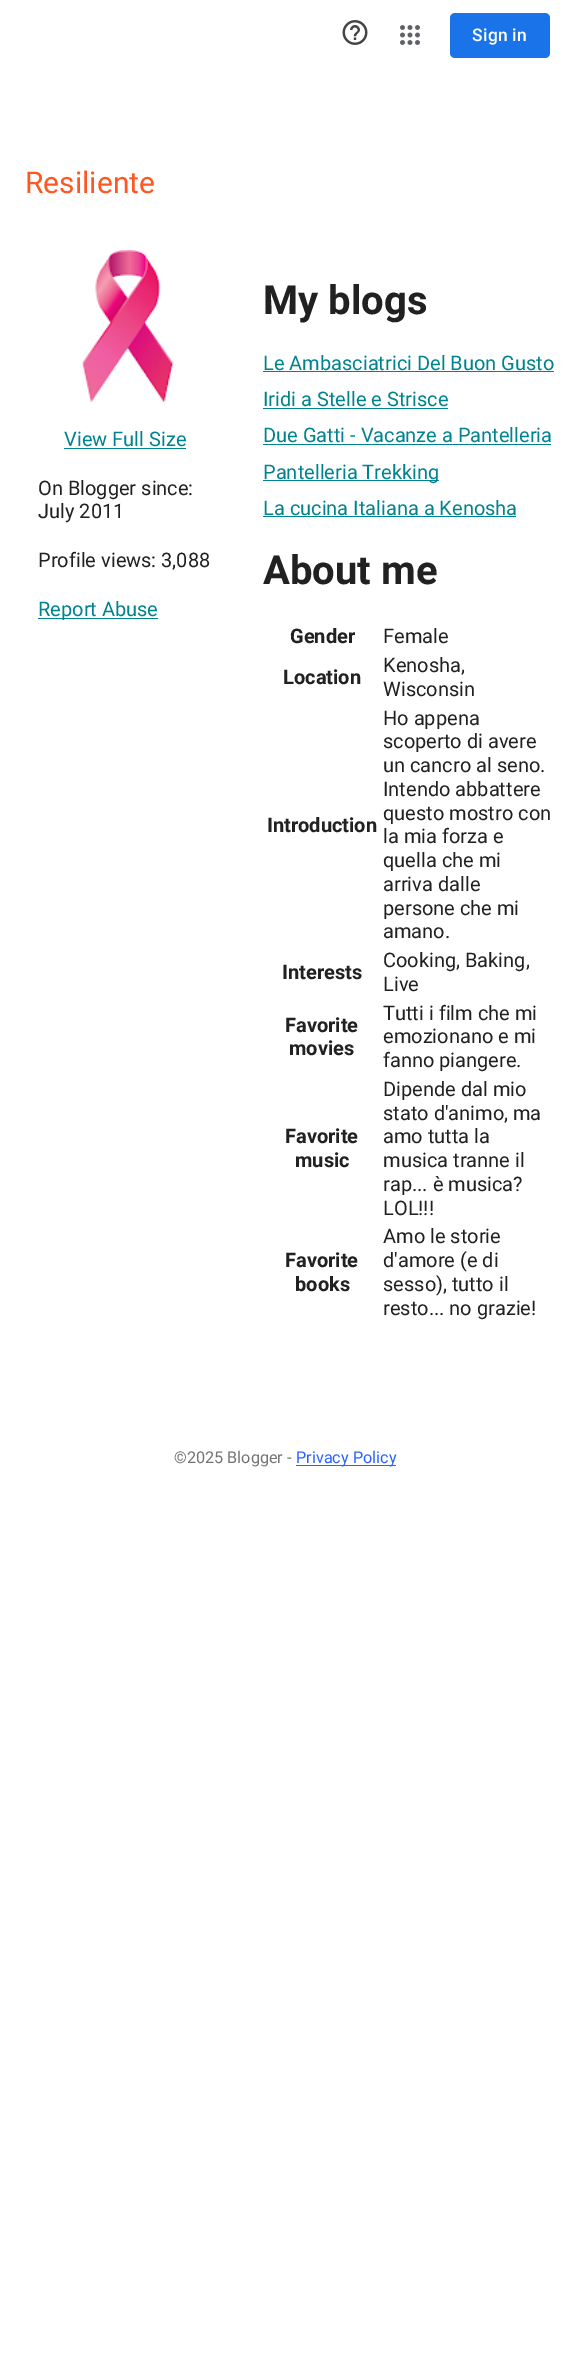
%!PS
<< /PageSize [569 2353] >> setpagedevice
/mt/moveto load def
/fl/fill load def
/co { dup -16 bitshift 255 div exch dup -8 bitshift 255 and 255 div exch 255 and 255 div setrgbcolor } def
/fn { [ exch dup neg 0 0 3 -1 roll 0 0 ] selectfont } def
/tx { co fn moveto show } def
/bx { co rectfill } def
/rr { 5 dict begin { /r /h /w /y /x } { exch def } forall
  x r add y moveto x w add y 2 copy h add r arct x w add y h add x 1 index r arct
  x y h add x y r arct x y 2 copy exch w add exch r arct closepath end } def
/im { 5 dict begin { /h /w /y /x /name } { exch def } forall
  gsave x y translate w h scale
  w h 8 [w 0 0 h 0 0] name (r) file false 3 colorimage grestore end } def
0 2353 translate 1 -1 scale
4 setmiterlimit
0 0 569 2353 16#FFFFFF bx
(media/1.raw) 342 20 26 25 im
(media/2.raw) 400 25 20 20 im
16#1A73E8 co
450 13 100 45 5 rr fl
(media/3.raw) 81 250 93 153 im
64 448 122 1 16#00838F bx
38 618 120 1 16#00838F bx
263 371 291 1 16#00838F bx
263 408 185 1 16#00838F bx
263 444 288 1 16#00838F bx
263 480 176 1 16#00838F bx
263 516 253 1 16#00838F bx
296 1465 100 1 16#2962FF bx
/Roboto-Medium 17.5 fn
16#FFFFFF co
472 41 mt .25 0 (Sign in) ashow
(Resiliente) 25 193 /Roboto-Regular 30 16#FF5722 tx
(View Full Size) 64 446 /Roboto-Regular 20 16#00838F tx
(On Blogger since:) 38 495 /Roboto-Regular 20 16#212121 tx
(July 2011) 38 518 /Roboto-Regular 20 16#212121 tx
(Profile views: 3,088) 38 567 /Roboto-Regular 20 16#212121 tx
(Report Abuse) 38 616 /Roboto-Regular 20 16#00838F tx
(My blogs) 263 314 /Roboto-Bold 40 16#212121 tx
(Le Ambasciatrici Del Buon Gusto) 263 370 /Roboto-Regular 20 16#00838F tx
(Iridi a Stelle e Strisce) 263 406 /Roboto-Regular 20 16#00838F tx
(Due Gatti - Vacanze a Pantelleria) 263 442 /Roboto-Regular 20 16#00838F tx
(Pantelleria Trekking) 263 479 /Roboto-Regular 20 16#00838F tx
(La cucina Italiana a Kenosha) 263 515 /Roboto-Regular 20 16#00838F tx
(About me) 263 584 /Roboto-Bold 40 16#212121 tx
(Gender) 290 643 /Roboto-Bold 20 16#212121 tx
(Female) 383 643 /Roboto-Regular 20 16#212121 tx
(Location) 283 684 /Roboto-Bold 20 16#212121 tx
(Kenosha,) 383 672 /Roboto-Regular 20 16#212121 tx
(Wisconsin) 383 696 /Roboto-Regular 20 16#212121 tx
(Introduction) 267 832 /Roboto-Bold 20 16#212121 tx
(Ho appena) 383 725 /Roboto-Regular 20 16#212121 tx
(scoperto di avere) 383 748 /Roboto-Regular 20 16#212121 tx
(un cancro al seno.) 383 772 /Roboto-Regular 20 16#212121 tx
(Intendo abbattere) 383 796 /Roboto-Regular 20 16#212121 tx
(questo mostro con) 383 820 /Roboto-Regular 20 16#212121 tx
(la mia forza e) 383 843 /Roboto-Regular 20 16#212121 tx
(quella che mi) 383 867 /Roboto-Regular 20 16#212121 tx
(arriva dalle) 383 891 /Roboto-Regular 20 16#212121 tx
(persone che mi) 383 915 /Roboto-Regular 20 16#212121 tx
(amano.) 383 938 /Roboto-Regular 20 16#212121 tx
(Interests) 282 979 /Roboto-Bold 20 16#212121 tx
(Cooking, Baking,) 383 967 /Roboto-Regular 20 16#212121 tx
(Live) 383 991 /Roboto-Regular 20 16#212121 tx
(Favorite) 285 1032 /Roboto-Bold 20 16#212121 tx
(movies) 289 1055 /Roboto-Bold 20 16#212121 tx
(Tutti i film che mi) 383 1020 /Roboto-Regular 20 16#212121 tx
(emozionano e mi) 383 1043 /Roboto-Regular 20 16#212121 tx
(fanno piangere.) 383 1067 /Roboto-Regular 20 16#212121 tx
(Favorite) 285 1143 /Roboto-Bold 20 16#212121 tx
(music) 295 1167 /Roboto-Bold 20 16#212121 tx
(Dipende dal mio) 383 1096 /Roboto-Regular 20 16#212121 tx
(stato d'animo, ma) 383 1120 /Roboto-Regular 20 16#212121 tx
(amo tutta la) 383 1143 /Roboto-Regular 20 16#212121 tx
(musica tranne il) 383 1167 /Roboto-Regular 20 16#212121 tx
(rap... è musica?) 383 1191 /Roboto-Regular 20 16#212121 tx
(LOL!!!) 383 1215 /Roboto-Regular 20 16#212121 tx
(Favorite) 285 1267 /Roboto-Bold 20 16#212121 tx
(books) 295 1291 /Roboto-Bold 20 16#212121 tx
(Amo le storie) 383 1243 /Roboto-Regular 20 16#212121 tx
(d'amore \(e di) 383 1267 /Roboto-Regular 20 16#212121 tx
(sesso\), tutto il) 383 1291 /Roboto-Regular 20 16#212121 tx
(resto... no grazie!) 383 1315 /Roboto-Regular 20 16#212121 tx
(©2025 Blogger -) 174 1463 /Roboto-Regular 16.25 16#757575 tx
(Privacy Policy) 296 1463 /Roboto-Regular 16.25 16#2962FF tx
showpage
